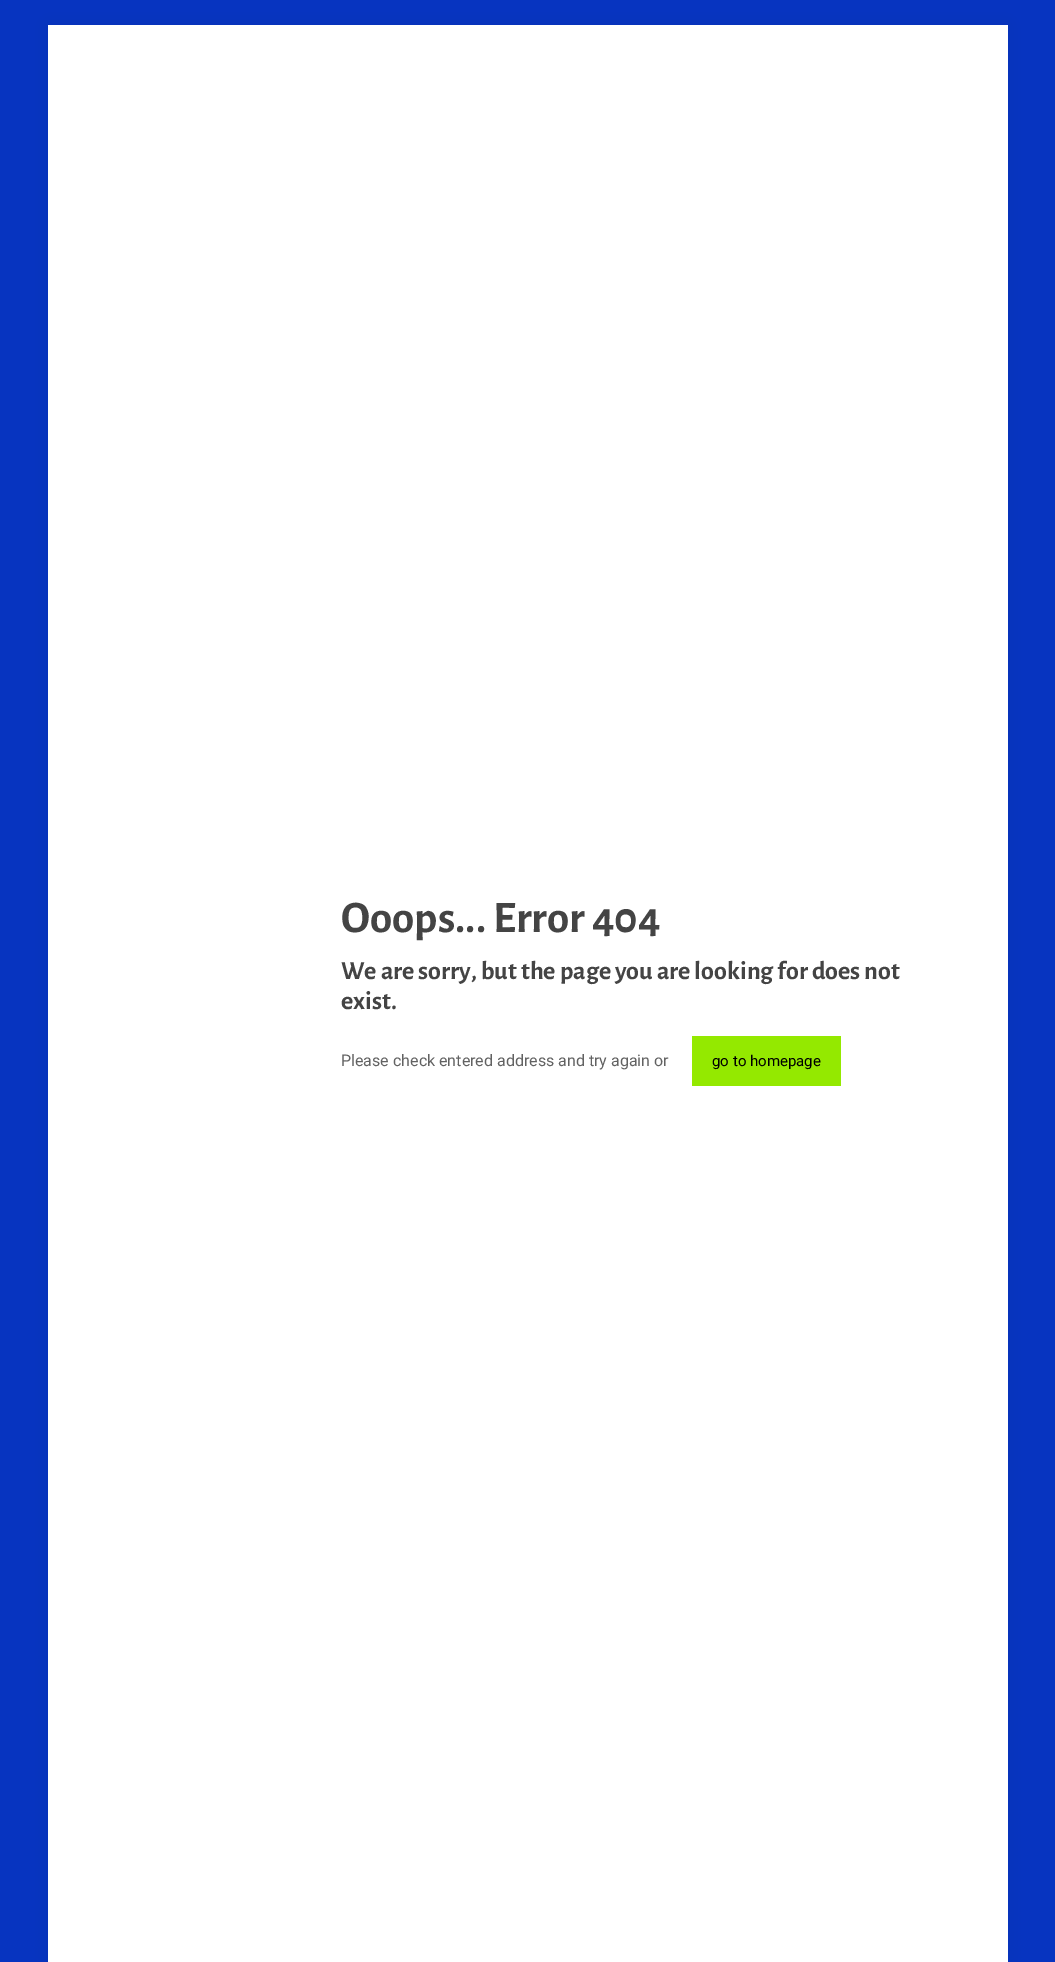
%!PS
<< /PageSize [1055 1962] /PageUsesTransparency true >> setpagedevice
/co { dup -16 bitshift 255 div exch dup -8 bitshift 255 and 255 div exch 255 and 255 div setrgbcolor } def
/fn { [ exch dup neg 0 0 3 -1 roll 0 0 ] selectfont } def
/tx { co fn moveto show } def
/bx { co rectfill } def
/al { dup .setfillconstantalpha .setstrokeconstantalpha } def
/rr { 5 dict begin { /r /h /w /y /x } { exch def } forall
  x r add y moveto x w add y 2 copy h add r arct x w add y h add x 1 index r arct
  x y h add x y r arct x y 2 copy exch w add exch r arct closepath end } def
/sh { 12 dict begin { /a /b /q /h /w /y /x } { exch def } forall gsave /was 0 def
  9 -2 -9 { dup b mul 4 div /e exch def 1 sub .425 mul 2.718 exch exp 1 add a .99 .min exch div /now exch def
    1 1 now sub 1 was sub div sub al /was now def
    w h .min e 2 mul add 0 gt { x e sub y e sub w e 2 mul add h e 2 mul add
      q e add b .6 mul add w h .min 2 div e add .min 0 .max rr fill } if } for grestore end } def
0 .pushpdf14devicefilter
0 1962 translate 1 -1 scale
4 setmiterlimit
0 0 1055 1962 16#0734C0 bx
16#000000 co
48 25 960 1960 0 7.5 .06 sh
48 25 960 1937 16#FFFFFF bx
692 1036 149 50 16#94E900 bx
(Ooops... Error 404) 341 932 /AlegreyaSans-Bold 45 16#444444 tx
(We are sorry, but the page you are looking for does not) 341 979 /AlegreyaSans-Bold 26 16#444444 tx
(exist.) 341 1009 /AlegreyaSans-Bold 26 16#444444 tx
(Please check entered address and try again or) 341 1066 /Roboto-Regular 16 16#626262 tx
(go to homepage) 712 1066 /Roboto-Regular 15 16#000000 tx
.poppdf14devicefilter showpage
